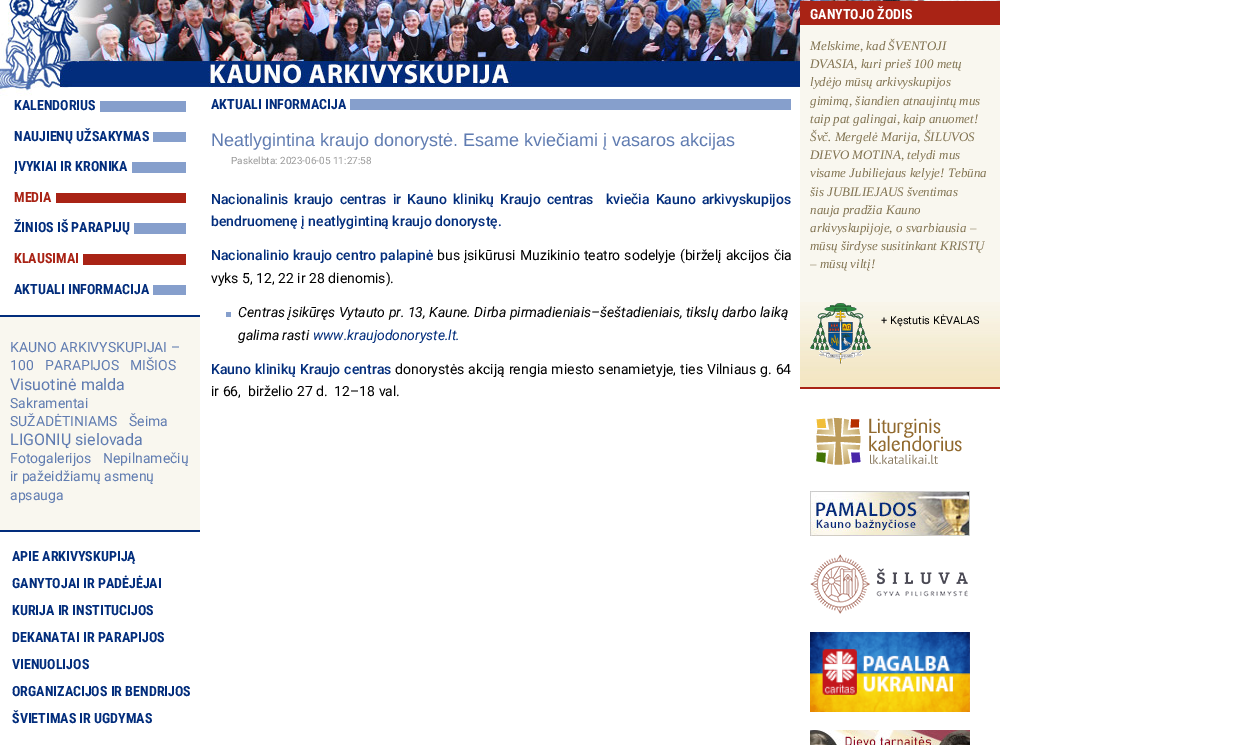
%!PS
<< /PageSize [1237 745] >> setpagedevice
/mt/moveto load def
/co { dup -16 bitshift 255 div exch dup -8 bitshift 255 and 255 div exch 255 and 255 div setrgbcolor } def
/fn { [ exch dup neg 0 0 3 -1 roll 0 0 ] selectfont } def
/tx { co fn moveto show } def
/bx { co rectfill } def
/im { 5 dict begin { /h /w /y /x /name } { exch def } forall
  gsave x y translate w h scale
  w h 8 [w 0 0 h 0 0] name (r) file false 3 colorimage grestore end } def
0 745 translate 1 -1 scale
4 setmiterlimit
0 0 1237 745 16#FFFFFF bx
(media/1.raw) 0 0 1000 96 im
100 101 86 11 16#869FCC bx
153 132 33 10 16#869FCC bx
132 162 54 11 16#869FCC bx
56 193 130 10 16#A92315 bx
134 223 52 11 16#869FCC bx
83 254 103 11 16#A92315 bx
153 285 33 10 16#869FCC bx
0 317 200 213 16#F9F7EF bx
0 315 200 2 16#022D7C bx
0 530 200 2 16#022D7C bx
350 99 441 11 16#869FCC bx
226 312 5 5 16#869FCC bx
800 25 200 277 16#F9F7EF bx
(media/2.raw) 800 302 200 85 im
800 387 200 2 16#A92315 bx
800 1 200 24 16#A92315 bx
(media/3.raw) 810 303 61 61 im
(media/4.raw) 816 417 146 48 im
(media/5.raw) 810 491 160 45 im
(media/6.raw) 810 554 158 60 im
(media/7.raw) 810 632 160 80 im
(media/8.raw) 810 730 160 15 im
(KALENDORIUS) 14 110 /RobotoCondensed-Bold 14 16#022D7C tx
(NAUJIENŲ UŽSAKYMAS) 14 141 /RobotoCondensed-Bold 14 16#022D7C tx
(ĮVYKIAI IR KRONIKA) 14 171 /RobotoCondensed-Bold 14 16#022D7C tx
(MEDIA) 14 202 /RobotoCondensed-Bold 14 16#A92315 tx
(ŽINIOS IŠ PARAPIJŲ) 14 232 /RobotoCondensed-Bold 14 16#022D7C tx
(KLAUSIMAI) 14 263 /RobotoCondensed-Bold 14 16#A92315 tx
(AKTUALI INFORMACIJA) 14 294 /RobotoCondensed-Bold 14 16#022D7C tx
(KAUNO ARKIVYSKUPIJAI –) 10 352 /Roboto-Regular 14 16#607CB1 tx
(100) 10 370 /Roboto-Regular 14 16#607CB1 tx
(PARAPIJOS) 45 370 /Roboto-Regular 14 16#607CB1 tx
(MIŠIOS) 130 370 /Roboto-Regular 14 16#607CB1 tx
(Visuotinė malda) 10 390 /Roboto-Regular 16 16#607CB1 tx
(Sakramentai) 10 408 /Roboto-Regular 14 16#607CB1 tx
(SUŽADĖTINIAMS) 10 426 /Roboto-Regular 14 16#607CB1 tx
(Šeima) 129 426 /Roboto-Regular 14 16#607CB1 tx
(LIGONIŲ sielovada) 10 445 /Roboto-Regular 16 16#607CB1 tx
(Fotogalerijos) 10 463 /Roboto-Regular 14 16#607CB1 tx
(Nepilnamečių) 103 463 /Roboto-Regular 14 16#607CB1 tx
(ir pažeidžiamų asmenų) 10 481 /Roboto-Regular 14 16#607CB1 tx
(apsauga) 10 500 /Roboto-Regular 14 16#607CB1 tx
(APIE ARKIVYSKUPIJĄ) 12 561 /RobotoCondensed-Bold 14 16#022D7C tx
(GANYTOJAI IR PADĖJĖJAI) 12 588 /RobotoCondensed-Bold 14 16#022D7C tx
(KURIJA IR INSTITUCIJOS) 12 615 /RobotoCondensed-Bold 14 16#022D7C tx
(DEKANATAI IR PARAPIJOS) 12 642 /RobotoCondensed-Bold 14 16#022D7C tx
(VIENUOLIJOS) 12 669 /RobotoCondensed-Bold 14 16#022D7C tx
(ORGANIZACIJOS IR BENDRIJOS) 12 696 /RobotoCondensed-Bold 14 16#022D7C tx
(ŠVIETIMAS IR UGDYMAS) 12 723 /RobotoCondensed-Bold 14 16#022D7C tx
(AKTUALI INFORMACIJA) 211 109 /RobotoCondensed-Bold 14 16#022D7C tx
(Neatlygintina kraujo donorystė. Esame kviečiami į vasaros akcijas) 211 146 /LiberationSans-Regular 18 16#607CB1 tx
(Paskelbta: 2023-06-05 11:27:58) 231 164 /Roboto-Regular 10 16#999999 tx
/Roboto-Medium 14 fn
16#022D7C co
211 204 mt 2.6 0 32 (Nacionalinis kraujo centras ir Kauno klinikų Kraujo centras  kviečia Kauno arkivyskupijos) widthshow
(bendruomenę į neatlygintiną kraujo donorystę.) 211 226 /Roboto-Medium 14 16#022D7C tx
211 260 mt .5 0 32 (Nacionalinio kraujo centro palapinė) widthshow
/Roboto-Regular 14 fn
16#000000 co
437 260 mt .5 0 32 (bus įsikūrusi Muzikinio teatro sodelyje \(birželį akcijos čia) widthshow
(vyks 5, 12, 22 ir 28 dienomis\).) 211 283 /Roboto-Regular 14 16#000000 tx
(Centras įsikūręs Vytauto pr. 13, Kaune. Dirba pirmadieniais–šeštadieniais, tikslų darbo laiką) 238 317 /Roboto-Italic 14 16#000000 tx
(galima rasti) 238 340 /Roboto-Italic 14 16#000000 tx
(www.kraujodonoryste.lt.) 313 340 /Roboto-Italic 14 16#022D7C tx
/Roboto-Medium 14 fn
211 374 mt .5 0 32 (Kauno klinikų Kraujo centras) widthshow
/Roboto-Regular 14 fn
16#000000 co
395 374 mt .5 0 32 (donorystės akciją rengia miesto senamietyje, ties Vilniaus g. 64) widthshow
(ir 66,  birželio 27 d.  12–18 val.) 211 396 /Roboto-Regular 14 16#000000 tx
(GANYTOJO ŽODIS) 810 19 /RobotoCondensed-Bold 14 16#FFFFFF tx
(Melskime, kad ŠVENTOJI) 810 50 /LiberationSerif-Italic 13 16#827452 tx
(DVASIA, kuri prieš 100 metų) 810 68 /LiberationSerif-Italic 13 16#827452 tx
(lydėjo mūsų arkivyskupijos) 810 86 /LiberationSerif-Italic 13 16#827452 tx
(gimimą, šiandien atnaujintų mus) 810 105 /LiberationSerif-Italic 13 16#827452 tx
(taip pat galingai, kaip anuomet!) 810 123 /LiberationSerif-Italic 13 16#827452 tx
(Švč. Mergelė Marija, ŠILUVOS) 810 141 /LiberationSerif-Italic 13 16#827452 tx
(DIEVO MOTINA, telydi mus) 810 159 /LiberationSerif-Italic 13 16#827452 tx
(visame Jubiliejaus kelyje! Tebūna) 810 177 /LiberationSerif-Italic 13 16#827452 tx
(šis JUBILIEJAUS šventimas) 810 196 /LiberationSerif-Italic 13 16#827452 tx
(nauja pradžia Kauno) 810 214 /LiberationSerif-Italic 13 16#827452 tx
(arkivyskupijoje, o svarbiausia –) 810 232 /LiberationSerif-Italic 13 16#827452 tx
(mūsų širdyse susitinkant KRISTŲ) 810 250 /LiberationSerif-Italic 13 16#827452 tx
(– mūsų viltį!) 810 268 /LiberationSerif-Italic 13 16#827452 tx
(+ Kęstutis KĖVALAS) 881 324 /Roboto-Regular 11 16#000000 tx
showpage
